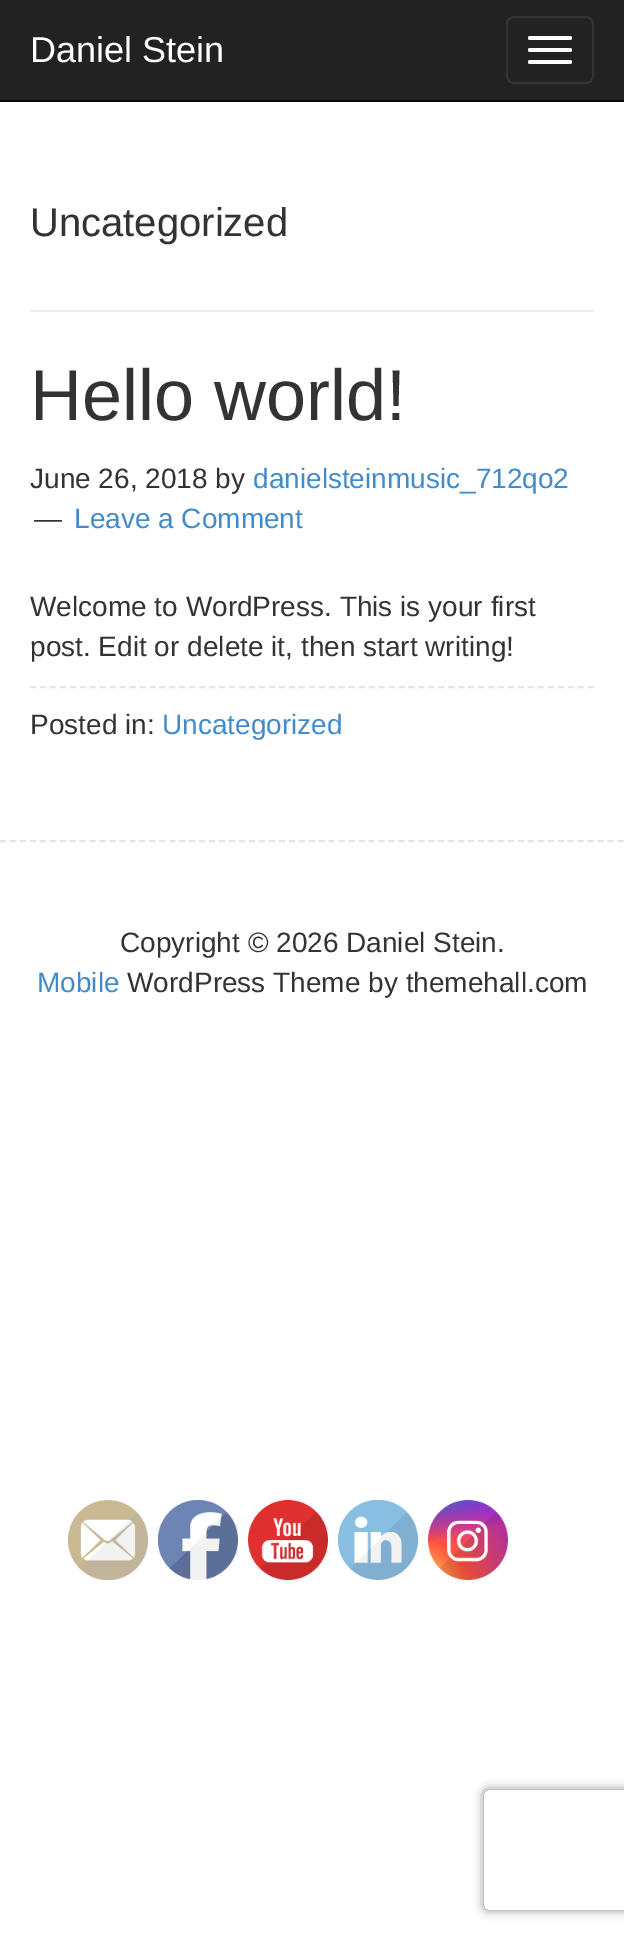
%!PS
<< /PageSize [624 1938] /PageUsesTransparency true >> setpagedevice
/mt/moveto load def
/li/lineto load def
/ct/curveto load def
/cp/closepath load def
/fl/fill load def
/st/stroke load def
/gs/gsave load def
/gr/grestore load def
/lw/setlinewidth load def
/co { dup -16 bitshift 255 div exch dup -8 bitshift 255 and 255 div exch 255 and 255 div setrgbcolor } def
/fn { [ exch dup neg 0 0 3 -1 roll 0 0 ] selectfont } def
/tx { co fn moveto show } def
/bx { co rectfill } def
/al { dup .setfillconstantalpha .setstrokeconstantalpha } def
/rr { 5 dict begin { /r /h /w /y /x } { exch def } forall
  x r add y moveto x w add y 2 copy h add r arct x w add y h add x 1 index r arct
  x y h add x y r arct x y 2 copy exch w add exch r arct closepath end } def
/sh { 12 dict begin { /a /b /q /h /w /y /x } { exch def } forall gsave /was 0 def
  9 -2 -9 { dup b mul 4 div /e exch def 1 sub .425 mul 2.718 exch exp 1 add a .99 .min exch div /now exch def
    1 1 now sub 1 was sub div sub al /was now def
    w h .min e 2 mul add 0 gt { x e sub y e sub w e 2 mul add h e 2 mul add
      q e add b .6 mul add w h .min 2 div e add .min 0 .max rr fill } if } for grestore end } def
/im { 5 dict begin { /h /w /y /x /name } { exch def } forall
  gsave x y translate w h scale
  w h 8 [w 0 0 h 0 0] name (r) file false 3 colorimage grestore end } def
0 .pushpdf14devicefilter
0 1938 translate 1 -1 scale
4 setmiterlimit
0 0 624 1938 16#FFFFFF bx
0 0 624 100 16#222222 bx
0 100 624 2 16#080808 bx
16#333333 co
2 lw
507 17 86 66 7 rr st
16#FFFFFF co
528 36 44 4 2 rr fl
528 48 44 4 2 rr fl
528 60 44 4 2 rr fl
30 310 564 2 16#EEEEEE bx
16#E5E5E5 co
[6 3.96] 0 setdash
30 687 mt 594 687 li st
0 841 mt 624 841 li st
(media/1.raw) 68 1500 80 80 im
(media/2.raw) 158 1500 80 80 im
(media/3.raw) 248 1500 80 80 im
(media/4.raw) 338 1500 80 80 im
(media/5.raw) 428 1500 80 80 im
gs
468 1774 mt 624 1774 li 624 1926 li 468 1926 li cp 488 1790 mt 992 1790 li 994 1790 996 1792 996 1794 ct 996 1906 li 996 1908 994 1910 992 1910 ct 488 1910 li 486 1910 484 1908 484 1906 ct 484 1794 li 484 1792 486 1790 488 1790 ct cp eoclip newpath
16#808080 co
484 1790 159 120 4 5 1 sh
gr
(Daniel Stein) 30 62 /LiberationSans-Regular 36 16#FFFFFF tx
(Uncategorized) 30 236 /LiberationSans-Regular 40 16#333333 tx
(Hello world!) 30 420 /LiberationSans-Regular 72 16#333333 tx
(June 26, 2018 by) 30 488 /LiberationSans-Regular 28 16#333333 tx
(danielsteinmusic_712qo2) 253 488 /LiberationSans-Regular 28 16#428BCA tx
(—) 34 528 /LiberationSans-Regular 28 16#333333 tx
(Leave a Comment) 74 528 /LiberationSans-Regular 28 16#428BCA tx
(Welcome to WordPress. This is your first) 30 616 /LiberationSans-Regular 28 16#333333 tx
(post. Edit or delete it, then start writing!) 30 656 /LiberationSans-Regular 28 16#333333 tx
(Posted in:) 30 734 /LiberationSans-Regular 28 16#333333 tx
(Uncategorized) 162 734 /LiberationSans-Regular 28 16#428BCA tx
(Copyright © 2026 Daniel Stein.) 120 952 /LiberationSans-Regular 28 16#333333 tx
(Mobile) 37 992 /LiberationSans-Regular 28 16#428BCA tx
(WordPress Theme by themehall.com) 127 992 /LiberationSans-Regular 28 16#333333 tx
.poppdf14devicefilter showpage
